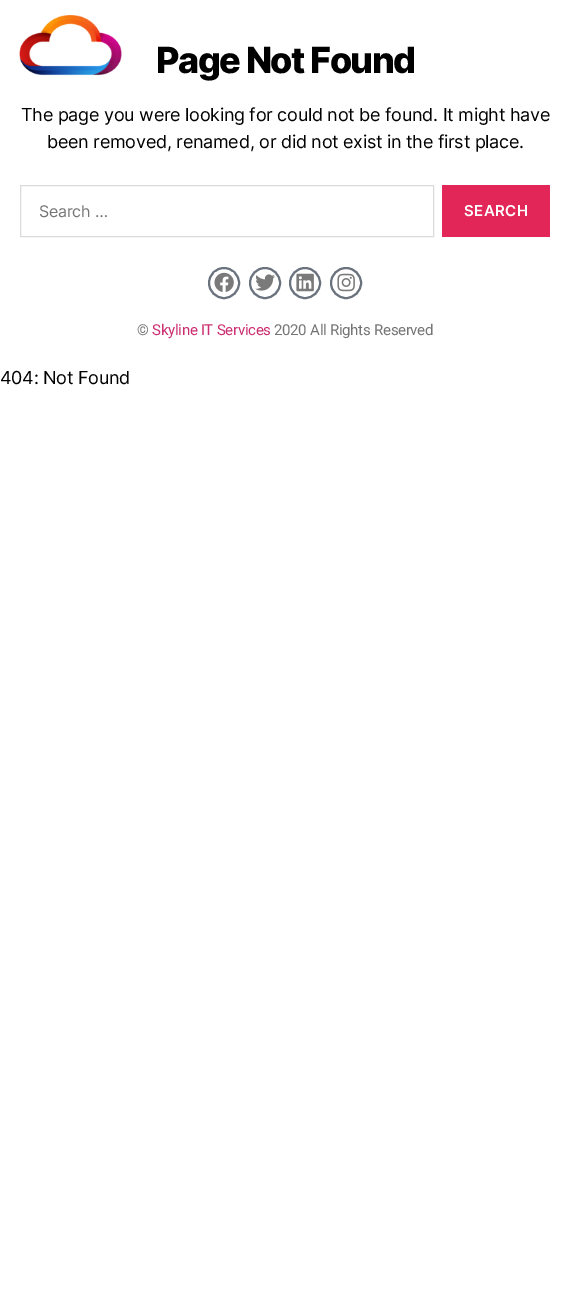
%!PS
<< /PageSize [570 1305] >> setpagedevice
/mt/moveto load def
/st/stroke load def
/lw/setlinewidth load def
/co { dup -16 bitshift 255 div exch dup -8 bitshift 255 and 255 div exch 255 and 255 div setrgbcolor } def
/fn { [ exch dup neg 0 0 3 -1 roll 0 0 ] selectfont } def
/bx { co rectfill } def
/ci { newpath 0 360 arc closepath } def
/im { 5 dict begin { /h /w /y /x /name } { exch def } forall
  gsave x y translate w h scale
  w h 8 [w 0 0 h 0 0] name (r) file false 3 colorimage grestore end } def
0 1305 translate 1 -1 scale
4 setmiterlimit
0 0 570 1305 16#FFFFFF bx
(media/1.raw) 19 15 103 61 im
16#DBDBDB co
20.5 185.5 413 51 rectstroke
442 185 108 52 16#E22658 bx
16#69727D co
2 lw
224 283 15 ci st
(media/2.raw) 214 272 20 20 im
265 283 15 ci st
(media/3.raw) 255 274 20 17 im
305 283 15 ci st
(media/4.raw) 296 273 18 19 im
346 283 15 ci st
(media/5.raw) 337 273 18 19 im
/Inter-ExtraBold 36 fn
16#000000 co
156 73 mt -1.5 0 (Page Not Found) ashow
/Inter-Regular 18 fn
21 121 mt -.27 0 (The page you were looking for could not be found. It might have) ashow
47 148 mt -.27 0 (been removed, renamed, or did not exist in the first place.) ashow
/Inter-Regular 16 fn
16#757575 co
39 217 mt -.25 0 (Search …) ashow
/Inter-SemiBold 15 fn
16#FFFFFF co
464 216 mt .5 0 (SEARCH) ashow
/Roboto-Regular 15 fn
16#757575 co
137 335 mt -.27 0 (©) ashow
16#CC2E72 co
152 335 mt -.27 0 (Skyline IT Services) ashow
16#757575 co
274 335 mt -.27 0 (2020 All Rights Reserved) ashow
/Inter-Regular 18 fn
16#000000 co
0 384 mt -.27 0 (404: Not Found) ashow
showpage
